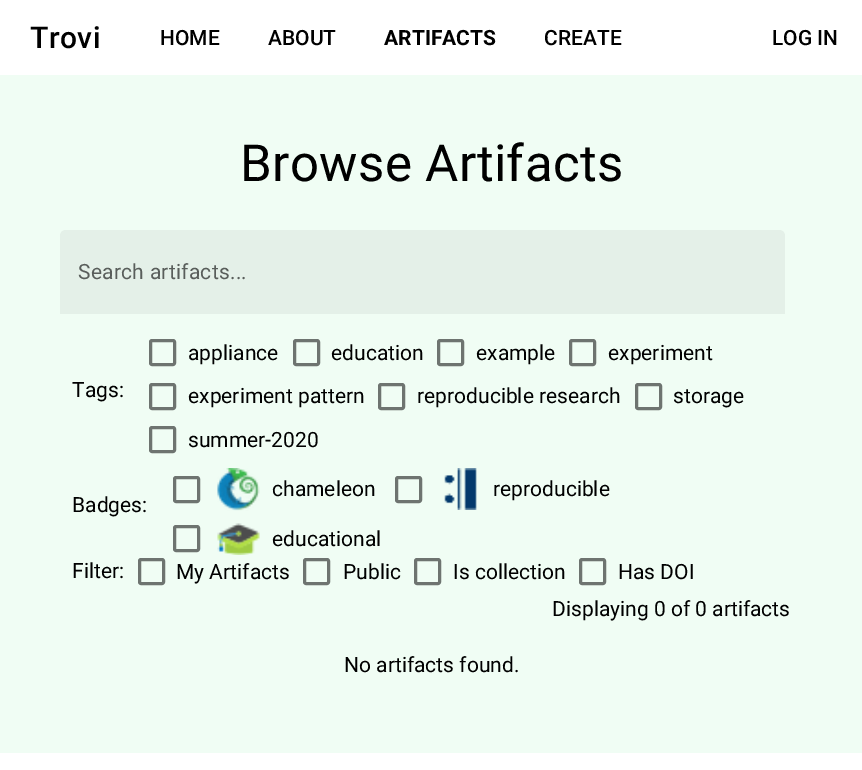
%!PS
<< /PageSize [862 770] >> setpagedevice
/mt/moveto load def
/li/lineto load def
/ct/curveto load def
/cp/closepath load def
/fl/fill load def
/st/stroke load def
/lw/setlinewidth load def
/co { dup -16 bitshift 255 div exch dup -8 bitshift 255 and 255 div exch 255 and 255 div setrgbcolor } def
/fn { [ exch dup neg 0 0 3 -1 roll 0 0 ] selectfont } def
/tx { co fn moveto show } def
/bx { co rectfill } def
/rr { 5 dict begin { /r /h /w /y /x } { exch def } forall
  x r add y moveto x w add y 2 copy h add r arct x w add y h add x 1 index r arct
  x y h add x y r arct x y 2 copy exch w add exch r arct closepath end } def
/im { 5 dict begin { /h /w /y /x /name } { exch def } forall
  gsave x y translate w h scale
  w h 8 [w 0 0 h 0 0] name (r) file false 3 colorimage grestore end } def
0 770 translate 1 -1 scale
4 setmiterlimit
0 0 862 770 16#FFFFFF bx
0 75 862 678 16#F0FDF4 bx
16#E4F0E8 co
66 230 mt 779 230 li 782.5 230 785 232.5 785 236 ct 785 314 li 60 314 li 60 236 li 60 232.5 62.5 230 66 230 ct cp fl
16#6E7470 co
3 lw
150.5 340.5 24 24 1.5 rr st
294.5 340.5 24 24 1.5 rr st
438.5 340.5 24 24 1.5 rr st
570.5 340.5 24 24 1.5 rr st
150.5 384.5 24 24 1.5 rr st
379.5 384.5 24 24 1.5 rr st
636.5 384.5 24 24 1.5 rr st
150.5 427.5 24 24 1.5 rr st
174.5 477.5 24 24 1.5 rr st
(media/1.raw) 217 468 43 43 im
396.5 477.5 24 24 1.5 rr st
(media/2.raw) 444 468 33 42 im
174.5 526.5 24 24 1.5 rr st
(media/3.raw) 217 523 43 32 im
139.5 559.5 24 24 1.5 rr st
304.5 559.5 24 24 1.5 rr st
415.5 559.5 24 24 1.5 rr st
580.5 559.5 24 24 1.5 rr st
/Roboto-Medium 30 fn
16#000000 co
30 48 mt .5 0 (Trovi) ashow
(HOME) 160 45 /Roboto-Medium 21 16#000000 tx
(ABOUT) 268 45 /Roboto-Medium 21 16#000000 tx
(ARTIFACTS) 384 45 /Roboto-Bold 21 16#000000 tx
(CREATE) 544 45 /Roboto-Medium 21 16#000000 tx
(LOG IN) 772 45 /Roboto-Medium 21 16#000000 tx
/Roboto-Regular 51 fn
240 181 mt .4 0 (Browse Artifacts) ashow
/Roboto-Regular 21 fn
16#595E5B co
78 279 mt .25 0 (Search artifacts...) ashow
(Tags:) 72 397 /Roboto-Regular 21 16#000000 tx
(appliance) 188 360 /Roboto-Regular 21 16#000000 tx
(education) 331 360 /Roboto-Regular 21 16#000000 tx
(example) 476 360 /Roboto-Regular 21 16#000000 tx
(experiment) 608 360 /Roboto-Regular 21 16#000000 tx
(experiment pattern) 188 403 /Roboto-Regular 21 16#000000 tx
(reproducible research) 417 403 /Roboto-Regular 21 16#000000 tx
(storage) 673 403 /Roboto-Regular 21 16#000000 tx
(summer-2020) 188 447 /Roboto-Regular 21 16#000000 tx
(Badges:) 72 512 /Roboto-Regular 21 16#000000 tx
(chameleon) 272 496 /Roboto-Regular 21 16#000000 tx
(reproducible) 493 496 /Roboto-Regular 21 16#000000 tx
(educational) 272 546 /Roboto-Regular 21 16#000000 tx
(Filter:) 72 578 /Roboto-Regular 21 16#000000 tx
(My Artifacts) 176 579 /Roboto-Regular 21 16#000000 tx
(Public) 343 579 /Roboto-Regular 21 16#000000 tx
(Is collection) 453 579 /Roboto-Regular 21 16#000000 tx
(Has DOI) 618 579 /Roboto-Regular 21 16#000000 tx
(Displaying 0 of 0 artifacts) 552 616 /Roboto-Regular 21 16#000000 tx
(No artifacts found.) 344 672 /Roboto-Regular 21 16#000000 tx
showpage
